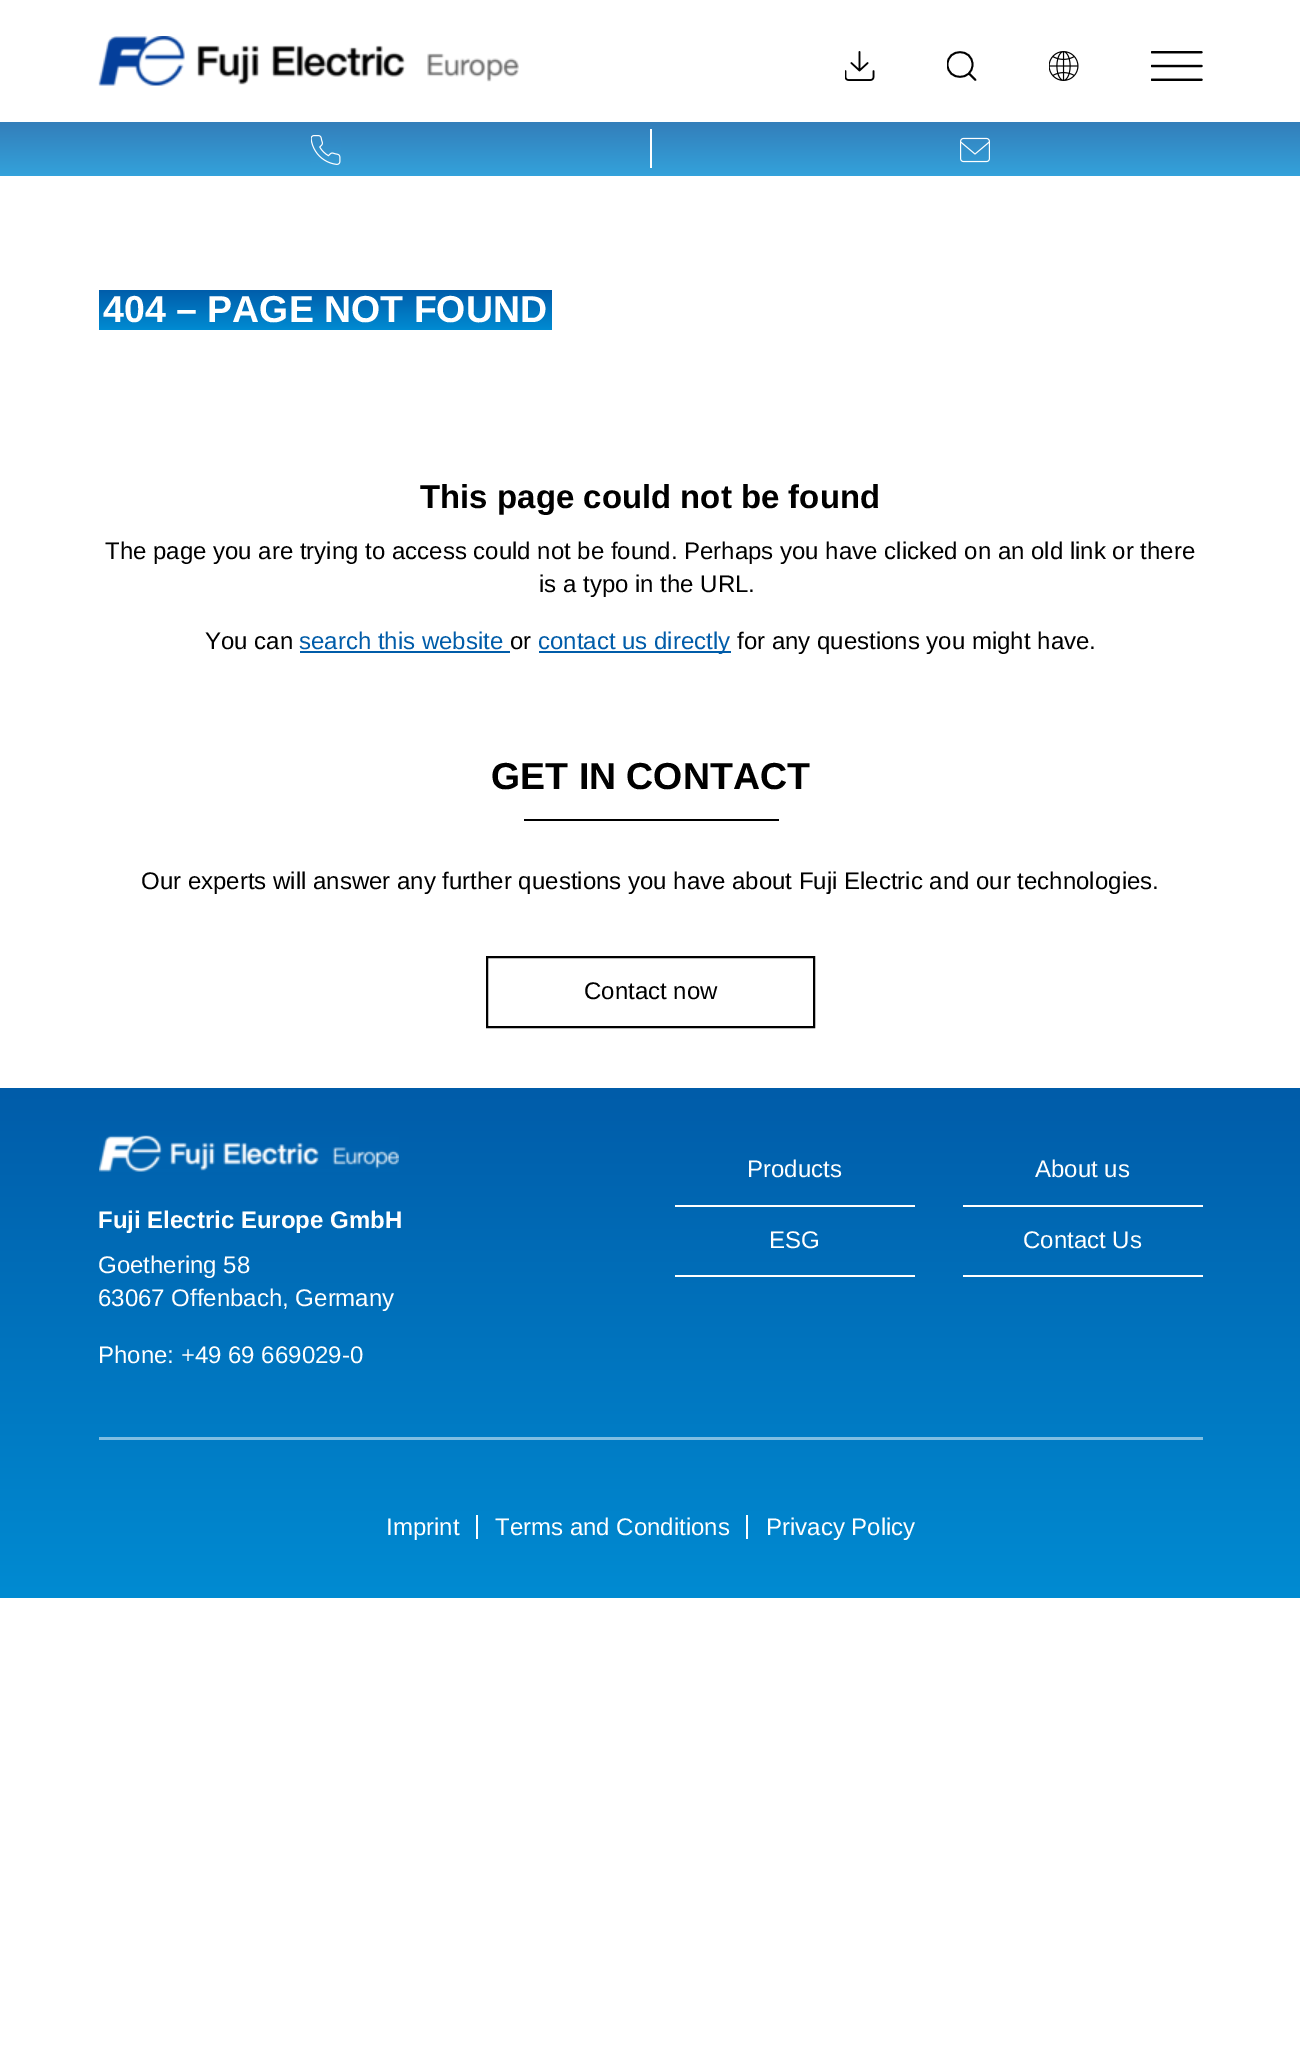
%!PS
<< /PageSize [1300 2067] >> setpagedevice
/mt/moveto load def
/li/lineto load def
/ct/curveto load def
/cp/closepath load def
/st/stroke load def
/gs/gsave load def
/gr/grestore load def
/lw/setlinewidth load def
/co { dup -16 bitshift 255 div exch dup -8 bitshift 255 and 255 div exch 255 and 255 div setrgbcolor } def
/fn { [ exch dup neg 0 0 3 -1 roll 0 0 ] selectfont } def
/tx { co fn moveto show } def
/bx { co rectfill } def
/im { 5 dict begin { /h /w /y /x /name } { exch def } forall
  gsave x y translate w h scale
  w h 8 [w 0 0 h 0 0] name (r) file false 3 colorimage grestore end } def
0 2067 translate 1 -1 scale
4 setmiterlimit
0 0 1300 2067 16#FFFFFF bx
(media/1.raw) 98 36 421 50 im
(media/2.raw) 845 51 30 30 im
gs
947 51 30 30 rectclip
16#000000 co
1.8 lw
1 setlinecap
1 setlinejoin
972.5 64.5 mt 972.5 81 947.5 81 947.5 64.5 ct 947.5 48 972.5 48 972.5 64.5 ct cp 975.5 80 mt 969 73.5 li st
gr
(media/3.raw) 1049 51 30 30 im
(media/4.raw) 1151 51 52 30 im
gs 0 122 mt 1300 122 li 1300 176 li 0 176 li cp clip newpath
<< /ShadingType 2 /ColorSpace /DeviceRGB /Coords [650 121 650 176] /Extend [true true] /Function << /FunctionType 2 /Domain [0 1] /C0 [.2 .49 .729] /C1 [.2 .635 .859] /N 1 >> >> shfill gr
(media/5.raw) 311 135 30 30 im
650 129 2 39 16#FFFFFF bx
(media/6.raw) 960 137 30 26 im
gs 99 290 mt 552 290 li 552 330 li 99 330 li cp clip newpath
<< /ShadingType 2 /ColorSpace /DeviceRGB /Coords [326 289 326 330] /Extend [true true] /Function << /FunctionType 2 /Domain [0 1] /C0 [0 .361 .663] /C1 [0 .545 .824] /N 1 >> >> shfill gr
300 651 210 2 16#005CA9 bx
539 651 192 2 16#005CA9 bx
524 819 255 2 16#000000 bx
2 lw
487 957 327 70 rectstroke
gs 0 1088 mt 1300 1088 li 1300 1598 li 0 1598 li cp clip newpath
<< /ShadingType 2 /ColorSpace /DeviceRGB /Coords [650 1088 650 1598] /Extend [true true] /Function << /FunctionType 2 /Domain [0 1] /C0 [0 .361 .663] /C1 [0 .545 .824] /N 1 >> >> shfill gr
(media/7.raw) 99 1135 300 37 im
675 1205 240 2 16#FFFFFF bx
675 1275 240 2 16#FFFFFF bx
963 1205 240 2 16#FFFFFF bx
963 1275 240 2 16#FFFFFF bx
99 1437 1104 3 16#80BEE2 bx
476 1515 2 24 16#FFFFFF bx
746 1515 2 24 16#FFFFFF bx
(404 – PAGE NOT FOUND) 103 322 /LiberationSans-Bold 37.5 16#FFFFFF tx
(This page could not be found) 420 508 /LiberationSans-Bold 33 16#000000 tx
(The page you are trying to access could not be found. Perhaps you have clicked on an old link or there) 105 559 /LiberationSans-Regular 24 16#000000 tx
(is a typo in the URL.) 539 592 /LiberationSans-Regular 24 16#000000 tx
(You can) 205 649 /LiberationSans-Regular 24 16#000000 tx
(search this website) 299 649 /LiberationSans-Regular 24 16#005CA9 tx
(or) 510 649 /LiberationSans-Regular 24 16#000000 tx
(contact us directly) 538 649 /LiberationSans-Regular 24 16#005CA9 tx
(for any questions you might have.) 737 649 /LiberationSans-Regular 24 16#000000 tx
(GET IN CONTACT) 491 789 /LiberationSans-Bold 37.5 16#000000 tx
(Our experts will answer any further questions you have about Fuji Electric and our technologies.) 141 889 /LiberationSans-Regular 24 16#000000 tx
(Contact now) 584 999 /LiberationSans-Regular 24 16#000000 tx
(Fuji Electric Europe GmbH) 98 1228 /LiberationSans-Bold 24 16#FFFFFF tx
(Goethering 58) 98 1273 /LiberationSans-Regular 24 16#FFFFFF tx
(63067 Offenbach, Germany) 98 1306 /LiberationSans-Regular 24 16#FFFFFF tx
(Phone: +49 69 669029-0) 98 1363 /LiberationSans-Regular 24 16#FFFFFF tx
(Products) 747 1177 /LiberationSans-Regular 24 16#FFFFFF tx
(ESG) 769 1248 /LiberationSans-Regular 24 16#FFFFFF tx
(About us) 1035 1177 /LiberationSans-Regular 24 16#FFFFFF tx
(Contact Us) 1023 1248 /LiberationSans-Regular 24 16#FFFFFF tx
(Imprint) 386 1535 /LiberationSans-Regular 24 16#FFFFFF tx
(Terms and Conditions) 495 1535 /LiberationSans-Regular 24 16#FFFFFF tx
(Privacy Policy) 766 1535 /LiberationSans-Regular 24 16#FFFFFF tx
showpage
